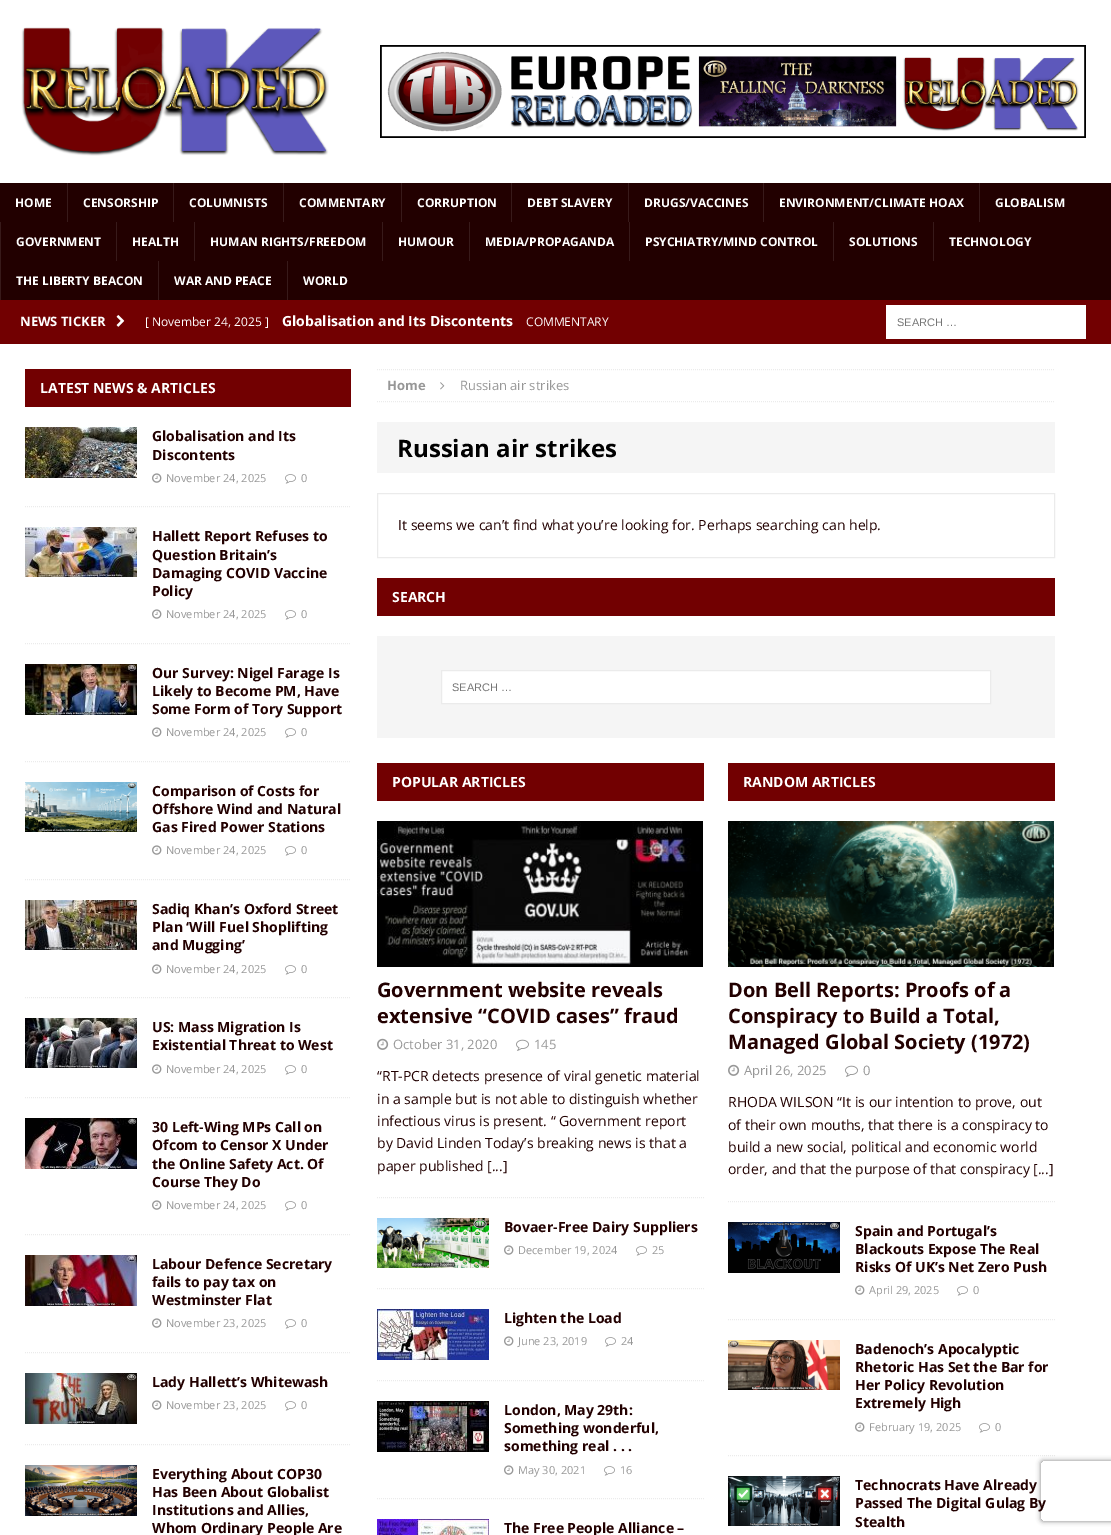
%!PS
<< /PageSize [1111 1535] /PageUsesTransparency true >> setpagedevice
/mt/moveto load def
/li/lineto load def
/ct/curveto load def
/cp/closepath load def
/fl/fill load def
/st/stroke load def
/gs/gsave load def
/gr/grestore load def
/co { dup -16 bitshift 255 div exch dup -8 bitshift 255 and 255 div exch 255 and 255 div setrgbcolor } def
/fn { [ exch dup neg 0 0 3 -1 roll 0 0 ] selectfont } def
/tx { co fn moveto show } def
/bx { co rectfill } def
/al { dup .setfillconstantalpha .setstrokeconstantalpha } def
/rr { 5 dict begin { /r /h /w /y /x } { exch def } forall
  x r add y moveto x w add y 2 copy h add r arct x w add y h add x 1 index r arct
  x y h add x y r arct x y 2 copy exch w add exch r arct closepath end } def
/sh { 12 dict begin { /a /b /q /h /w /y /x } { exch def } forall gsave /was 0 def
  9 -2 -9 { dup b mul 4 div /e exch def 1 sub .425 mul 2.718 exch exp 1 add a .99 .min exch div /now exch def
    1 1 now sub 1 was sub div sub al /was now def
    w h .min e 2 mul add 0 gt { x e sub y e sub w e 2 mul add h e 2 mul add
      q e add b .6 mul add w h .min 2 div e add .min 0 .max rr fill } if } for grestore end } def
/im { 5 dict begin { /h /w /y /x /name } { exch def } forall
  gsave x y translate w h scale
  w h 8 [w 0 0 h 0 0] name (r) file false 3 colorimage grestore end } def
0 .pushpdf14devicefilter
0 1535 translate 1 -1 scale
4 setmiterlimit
0 0 1111 1535 16#FFFFFF bx
(media/1.raw) 21 27 308 129 im
(media/2.raw) 380 45 706 93 im
0 183 1111 117 16#220000 bx
67 183 1 39 16#381A1A bx
173 183 1 39 16#381A1A bx
283 183 1 39 16#381A1A bx
401 183 1 39 16#381A1A bx
511 183 1 39 16#381A1A bx
628 183 1 39 16#381A1A bx
763 183 1 39 16#381A1A bx
979 183 1 39 16#381A1A bx
0 222 1 78 16#381A1A bx
116 222 1 39 16#381A1A bx
194 222 1 39 16#381A1A bx
382 222 1 39 16#381A1A bx
469 222 1 39 16#381A1A bx
629 222 1 39 16#381A1A bx
833 222 1 39 16#381A1A bx
933 222 1 39 16#381A1A bx
158 261 1 39 16#381A1A bx
287 261 1 39 16#381A1A bx
0 300 1111 44 16#720001 bx
(media/3.raw) 116 315 9 12 im
886 305 200 34 16#FFFFFF bx
25 369 326 38 16#720001 bx
16#EBEBEB co
[1 1] 0 setdash
25 506.5 mt 351 506.5 li st
(media/4.raw) 25 427 112 51 im
(media/5.raw) 152 473 10 10 im
(media/6.raw) 285 474 11 10 im
25 643.5 mt 351 643.5 li st
(media/7.raw) 25 527 112 50 im
(media/5.raw) 152 609 10 10 im
(media/6.raw) 285 610 11 10 im
25 761.5 mt 351 761.5 li st
(media/8.raw) 25 664 112 51 im
(media/5.raw) 152 727 10 10 im
(media/6.raw) 285 728 11 10 im
25 879.5 mt 351 879.5 li st
(media/9.raw) 25 782 112 50 im
(media/5.raw) 152 845 10 10 im
(media/6.raw) 285 846 11 10 im
25 997.5 mt 351 997.5 li st
(media/10.raw) 25 900 112 50 im
(media/5.raw) 152 964 10 10 im
(media/6.raw) 285 965 11 10 im
25 1097.5 mt 351 1097.5 li st
(media/11.raw) 25 1018 112 50 im
(media/5.raw) 152 1064 10 10 im
(media/6.raw) 285 1065 11 10 im
25 1234.5 mt 351 1234.5 li st
(media/12.raw) 25 1118 112 51 im
(media/5.raw) 152 1200 10 10 im
(media/6.raw) 285 1201 11 10 im
25 1352.5 mt 351 1352.5 li st
(media/13.raw) 25 1255 112 51 im
(media/5.raw) 152 1318 10 10 im
(media/6.raw) 285 1319 11 10 im
25 1444.5 mt 351 1444.5 li st
(media/14.raw) 25 1373 112 51 im
(media/5.raw) 152 1400 10 10 im
(media/6.raw) 285 1401 11 10 im
(media/15.raw) 25 1465 112 51 im
377 369.5 mt 1055 369.5 li st
377 401.5 mt 1055 401.5 li st
(media/16.raw) 440 382 5 8 im
377 422 678 51 16#F5F5F5 bx
16#EBEBEB co
[] 0 setdash
377.5 493.5 677 64 rectstroke
377 578 678 38 16#720001 bx
377 636 678 102 16#F5F5F5 bx
16#FFFFFF co
441.5 670.5 mt 990.5 670.5 li 990.5 703.5 li 441.5 703.5 li cp gs fl gr
16#EBEBEB co
st
377 763 327 38 16#720001 bx
16#EBEBEB co
[1 1] 0 setdash
377 1197.5 mt 704 1197.5 li st
(media/17.raw) 377 821 326 146 im
(media/18.raw) 377 1038 12 12 im
(media/19.raw) 516 1039 13 12 im
377 1288.5 mt 704 1288.5 li st
(media/20.raw) 377 1218 112 50 im
(media/5.raw) 504 1245 10 10 im
(media/6.raw) 636 1246 11 10 im
377 1380.5 mt 704 1380.5 li st
(media/21.raw) 377 1309 112 51 im
(media/5.raw) 504 1336 10 10 im
(media/6.raw) 605 1337 11 10 im
377 1498.5 mt 704 1498.5 li st
(media/22.raw) 377 1401 112 51 im
(media/5.raw) 504 1465 10 10 im
(media/6.raw) 604 1466 11 10 im
(media/23.raw) 377 1519 112 16 im
728 763 327 38 16#720001 bx
16#EBEBEB co
728 1201.5 mt 1055 1201.5 li st
(media/24.raw) 728 821 326 146 im
(media/18.raw) 728 1064 12 12 im
(media/19.raw) 845 1065 13 12 im
728 1319.5 mt 1055 1319.5 li st
(media/25.raw) 728 1222 112 51 im
(media/5.raw) 855 1285 10 10 im
(media/6.raw) 957 1286 11 10 im
728 1455.5 mt 1055 1455.5 li st
(media/26.raw) 728 1340 112 50 im
(media/5.raw) 855 1422 10 10 im
(media/6.raw) 979 1423 11 10 im
(media/27.raw) 728 1476 112 50 im
gs
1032 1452 mt 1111 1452 li 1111 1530 li 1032 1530 li cp 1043 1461 mt 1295 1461 li 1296 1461 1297 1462 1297 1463 ct 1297 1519 li 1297 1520 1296 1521 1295 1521 ct 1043 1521 li 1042 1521 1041 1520 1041 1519 ct 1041 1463 li 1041 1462 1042 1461 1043 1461 ct cp eoclip newpath
16#808080 co
1041 1461 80 60 2 2.5 1 sh
gr
(HOME) 15 207 /OpenSans-Bold 12 16#FFFFFF tx
(CENSORSHIP) 83 207 /OpenSans-Bold 12 16#FFFFFF tx
(COLUMNISTS) 189 207 /OpenSans-Bold 12 16#FFFFFF tx
(COMMENTARY) 299 207 /OpenSans-Bold 12 16#FFFFFF tx
(CORRUPTION) 417 207 /OpenSans-Bold 12 16#FFFFFF tx
(DEBT SLAVERY) 527 207 /OpenSans-Bold 12 16#FFFFFF tx
(DRUGS/VACCINES) 644 207 /OpenSans-Bold 12 16#FFFFFF tx
(ENVIRONMENT/CLIMATE HOAX) 779 207 /OpenSans-Bold 12 16#FFFFFF tx
(GLOBALISM) 995 207 /OpenSans-Bold 12 16#FFFFFF tx
(GOVERNMENT) 16 246 /OpenSans-Bold 12 16#FFFFFF tx
(HEALTH) 132 246 /OpenSans-Bold 12 16#FFFFFF tx
(HUMAN RIGHTS/FREEDOM) 210 246 /OpenSans-Bold 12 16#FFFFFF tx
(HUMOUR) 398 246 /OpenSans-Bold 12 16#FFFFFF tx
(MEDIA/PROPAGANDA) 485 246 /OpenSans-Bold 12 16#FFFFFF tx
(PSYCHIATRY/MIND CONTROL) 645 246 /OpenSans-Bold 12 16#FFFFFF tx
(SOLUTIONS) 849 246 /OpenSans-Bold 12 16#FFFFFF tx
(TECHNOLOGY) 949 246 /OpenSans-Bold 12 16#FFFFFF tx
(THE LIBERTY BEACON) 16 285 /OpenSans-Bold 12 16#FFFFFF tx
(WAR AND PEACE) 174 285 /OpenSans-Bold 12 16#FFFFFF tx
(WORLD) 303 285 /OpenSans-Bold 12 16#FFFFFF tx
(NEWS TICKER) 20 326 /OpenSans-Bold 13 16#FFFFFF tx
([ November 24, 2025 ]) 145 326 /OpenSans-Regular 12 16#FFFFFF tx
(Globalisation and Its Discontents) 282 326 /OpenSans-Bold 14 16#FFFFFF tx
(COMMENTARY) 526 326 /OpenSans-Regular 12 16#FFFFFF tx
(SEARCH …) 897 326 /LiberationSans-Regular 11 16#757575 tx
(LATEST NEWS & ARTICLES) 40 393 /OpenSans-Bold 14 16#FFFFFF tx
(Globalisation and Its) 152 441 /OpenSans-Bold 14 16#220000 tx
(Discontents) 152 460 /OpenSans-Bold 14 16#220000 tx
(November 24, 2025) 166 482 /OpenSans-Regular 11 16#979797 tx
(0) 301 482 /OpenSans-Regular 11 16#979797 tx
(Hallett Report Refuses to) 152 541 /OpenSans-Bold 14 16#220000 tx
(Question Britain’s) 152 560 /OpenSans-Bold 14 16#220000 tx
(Damaging COVID Vaccine) 152 578 /OpenSans-Bold 14 16#220000 tx
(Policy) 152 596 /OpenSans-Bold 14 16#220000 tx
(November 24, 2025) 166 618 /OpenSans-Regular 11 16#979797 tx
(0) 301 618 /OpenSans-Regular 11 16#979797 tx
(Our Survey: Nigel Farage Is) 152 678 /OpenSans-Bold 14 16#220000 tx
(Likely to Become PM, Have) 152 696 /OpenSans-Bold 14 16#220000 tx
(Some Form of Tory Support) 152 714 /OpenSans-Bold 14 16#220000 tx
(November 24, 2025) 166 736 /OpenSans-Regular 11 16#979797 tx
(0) 301 736 /OpenSans-Regular 11 16#979797 tx
(Comparison of Costs for) 152 796 /OpenSans-Bold 14 16#220000 tx
(Offshore Wind and Natural) 152 814 /OpenSans-Bold 14 16#220000 tx
(Gas Fired Power Stations) 152 832 /OpenSans-Bold 14 16#220000 tx
(November 24, 2025) 166 854 /OpenSans-Regular 11 16#979797 tx
(0) 301 854 /OpenSans-Regular 11 16#979797 tx
(Sadiq Khan’s Oxford Street) 152 914 /OpenSans-Bold 14 16#220000 tx
(Plan ‘Will Fuel Shoplifting) 152 932 /OpenSans-Bold 14 16#220000 tx
(and Mugging’) 152 950 /OpenSans-Bold 14 16#220000 tx
(November 24, 2025) 166 973 /OpenSans-Regular 11 16#979797 tx
(0) 301 973 /OpenSans-Regular 11 16#979797 tx
(US: Mass Migration Is) 152 1032 /OpenSans-Bold 14 16#220000 tx
(Existential Threat to West) 152 1050 /OpenSans-Bold 14 16#220000 tx
(November 24, 2025) 166 1073 /OpenSans-Regular 11 16#979797 tx
(0) 301 1073 /OpenSans-Regular 11 16#979797 tx
(30 Left-Wing MPs Call on) 152 1132 /OpenSans-Bold 14 16#220000 tx
(Ofcom to Censor X Under) 152 1150 /OpenSans-Bold 14 16#220000 tx
(the Online Safety Act. Of) 152 1169 /OpenSans-Bold 14 16#220000 tx
(Course They Do) 152 1187 /OpenSans-Bold 14 16#220000 tx
(November 24, 2025) 166 1209 /OpenSans-Regular 11 16#979797 tx
(0) 301 1209 /OpenSans-Regular 11 16#979797 tx
(Labour Defence Secretary) 152 1269 /OpenSans-Bold 14 16#220000 tx
(fails to pay tax on) 152 1287 /OpenSans-Bold 14 16#220000 tx
(Westminster Flat) 152 1305 /OpenSans-Bold 14 16#220000 tx
(November 23, 2025) 166 1327 /OpenSans-Regular 11 16#979797 tx
(0) 301 1327 /OpenSans-Regular 11 16#979797 tx
(Lady Hallett’s Whitewash) 152 1387 /OpenSans-Bold 14 16#220000 tx
(November 23, 2025) 166 1409 /OpenSans-Regular 11 16#979797 tx
(0) 301 1409 /OpenSans-Regular 11 16#979797 tx
(Everything About COP30) 152 1479 /OpenSans-Bold 14 16#220000 tx
(Has Been About Globalist) 152 1497 /OpenSans-Bold 14 16#220000 tx
(Institutions and Allies,) 152 1515 /OpenSans-Bold 14 16#220000 tx
(Whom Ordinary People Are) 152 1533 /OpenSans-Bold 14 16#220000 tx
(Home) 387 390 /OpenSans-Bold 13 16#979797 tx
(Russian air strikes) 460 390 /OpenSans-Regular 13 16#979797 tx
(Russian air strikes) 397 457 /OpenSans-Bold 24 16#000000 tx
(It seems we can’t find what you’re looking for. Perhaps searching can help.) 398 530 /OpenSans-Regular 14 16#220000 tx
(SEARCH) 392 602 /OpenSans-Bold 14 16#FFFFFF tx
(SEARCH …) 452 691 /LiberationSans-Regular 11 16#757575 tx
(POPULAR ARTICLES) 392 787 /OpenSans-Bold 14 16#FFFFFF tx
(Government website reveals) 377 997 /OpenSans-Bold 20 16#220000 tx
(extensive “COVID cases” fraud) 377 1023 /OpenSans-Bold 20 16#220000 tx
(October 31, 2020) 393 1049 /OpenSans-Regular 13 16#979797 tx
(145) 534 1049 /OpenSans-Regular 13 16#979797 tx
(“RT-PCR detects presence of viral genetic material) 377 1081 /OpenSans-Regular 14 16#220000 tx
(in a sample but is not able to distinguish whether) 377 1104 /OpenSans-Regular 14 16#220000 tx
(infectious virus is present. “ Government report) 377 1126 /OpenSans-Regular 14 16#220000 tx
(by David Linden Today’s breaking news is that a) 377 1148 /OpenSans-Regular 14 16#220000 tx
(paper published [...]) 377 1171 /OpenSans-Regular 14 16#220000 tx
(Bovaer-Free Dairy Suppliers) 504 1232 /OpenSans-Bold 14 16#220000 tx
(December 19, 2024) 518 1254 /OpenSans-Regular 11 16#979797 tx
(25) 652 1254 /OpenSans-Regular 11 16#979797 tx
(Lighten the Load) 504 1323 /OpenSans-Bold 14 16#220000 tx
(June 23, 2019) 518 1345 /OpenSans-Regular 11 16#979797 tx
(24) 621 1345 /OpenSans-Regular 11 16#979797 tx
(London, May 29th:) 504 1415 /OpenSans-Bold 14 16#220000 tx
(Something wonderful,) 504 1433 /OpenSans-Bold 14 16#220000 tx
(something real . . .) 504 1451 /OpenSans-Bold 14 16#220000 tx
(May 30, 2021) 518 1474 /OpenSans-Regular 11 16#979797 tx
(16) 620 1474 /OpenSans-Regular 11 16#979797 tx
(The Free People Alliance –) 504 1533 /OpenSans-Bold 14 16#220000 tx
(RANDOM ARTICLES) 743 787 /OpenSans-Bold 14 16#FFFFFF tx
(Don Bell Reports: Proofs of a) 728 997 /OpenSans-Bold 20 16#220000 tx
(Conspiracy to Build a Total,) 728 1023 /OpenSans-Bold 20 16#220000 tx
(Managed Global Society \(1972\)) 728 1049 /OpenSans-Bold 20 16#220000 tx
(April 26, 2025) 744 1075 /OpenSans-Regular 13 16#979797 tx
(0) 863 1075 /OpenSans-Regular 13 16#979797 tx
(RHODA WILSON “It is our intention to prove, out) 728 1107 /OpenSans-Regular 14 16#220000 tx
(of their own mouths, that there is a conspiracy to) 728 1130 /OpenSans-Regular 14 16#220000 tx
(build a new social, political and economic world) 728 1152 /OpenSans-Regular 14 16#220000 tx
(order, and that the purpose of that conspiracy [...]) 728 1174 /OpenSans-Regular 14 16#220000 tx
(Spain and Portugal’s) 855 1236 /OpenSans-Bold 14 16#220000 tx
(Blackouts Expose The Real) 855 1254 /OpenSans-Bold 14 16#220000 tx
(Risks Of UK’s Net Zero Push) 855 1272 /OpenSans-Bold 14 16#220000 tx
(April 29, 2025) 869 1294 /OpenSans-Regular 11 16#979797 tx
(0) 973 1294 /OpenSans-Regular 11 16#979797 tx
(Badenoch’s Apocalyptic) 855 1354 /OpenSans-Bold 14 16#220000 tx
(Rhetoric Has Set the Bar for) 855 1372 /OpenSans-Bold 14 16#220000 tx
(Her Policy Revolution) 855 1390 /OpenSans-Bold 14 16#220000 tx
(Extremely High) 855 1408 /OpenSans-Bold 14 16#220000 tx
(February 19, 2025) 869 1431 /OpenSans-Regular 11 16#979797 tx
(0) 995 1431 /OpenSans-Regular 11 16#979797 tx
(Technocrats Have Already) 855 1490 /OpenSans-Bold 14 16#220000 tx
(Passed The Digital Gulag By) 855 1508 /OpenSans-Bold 14 16#220000 tx
(Stealth) 855 1527 /OpenSans-Bold 14 16#220000 tx
.poppdf14devicefilter showpage
